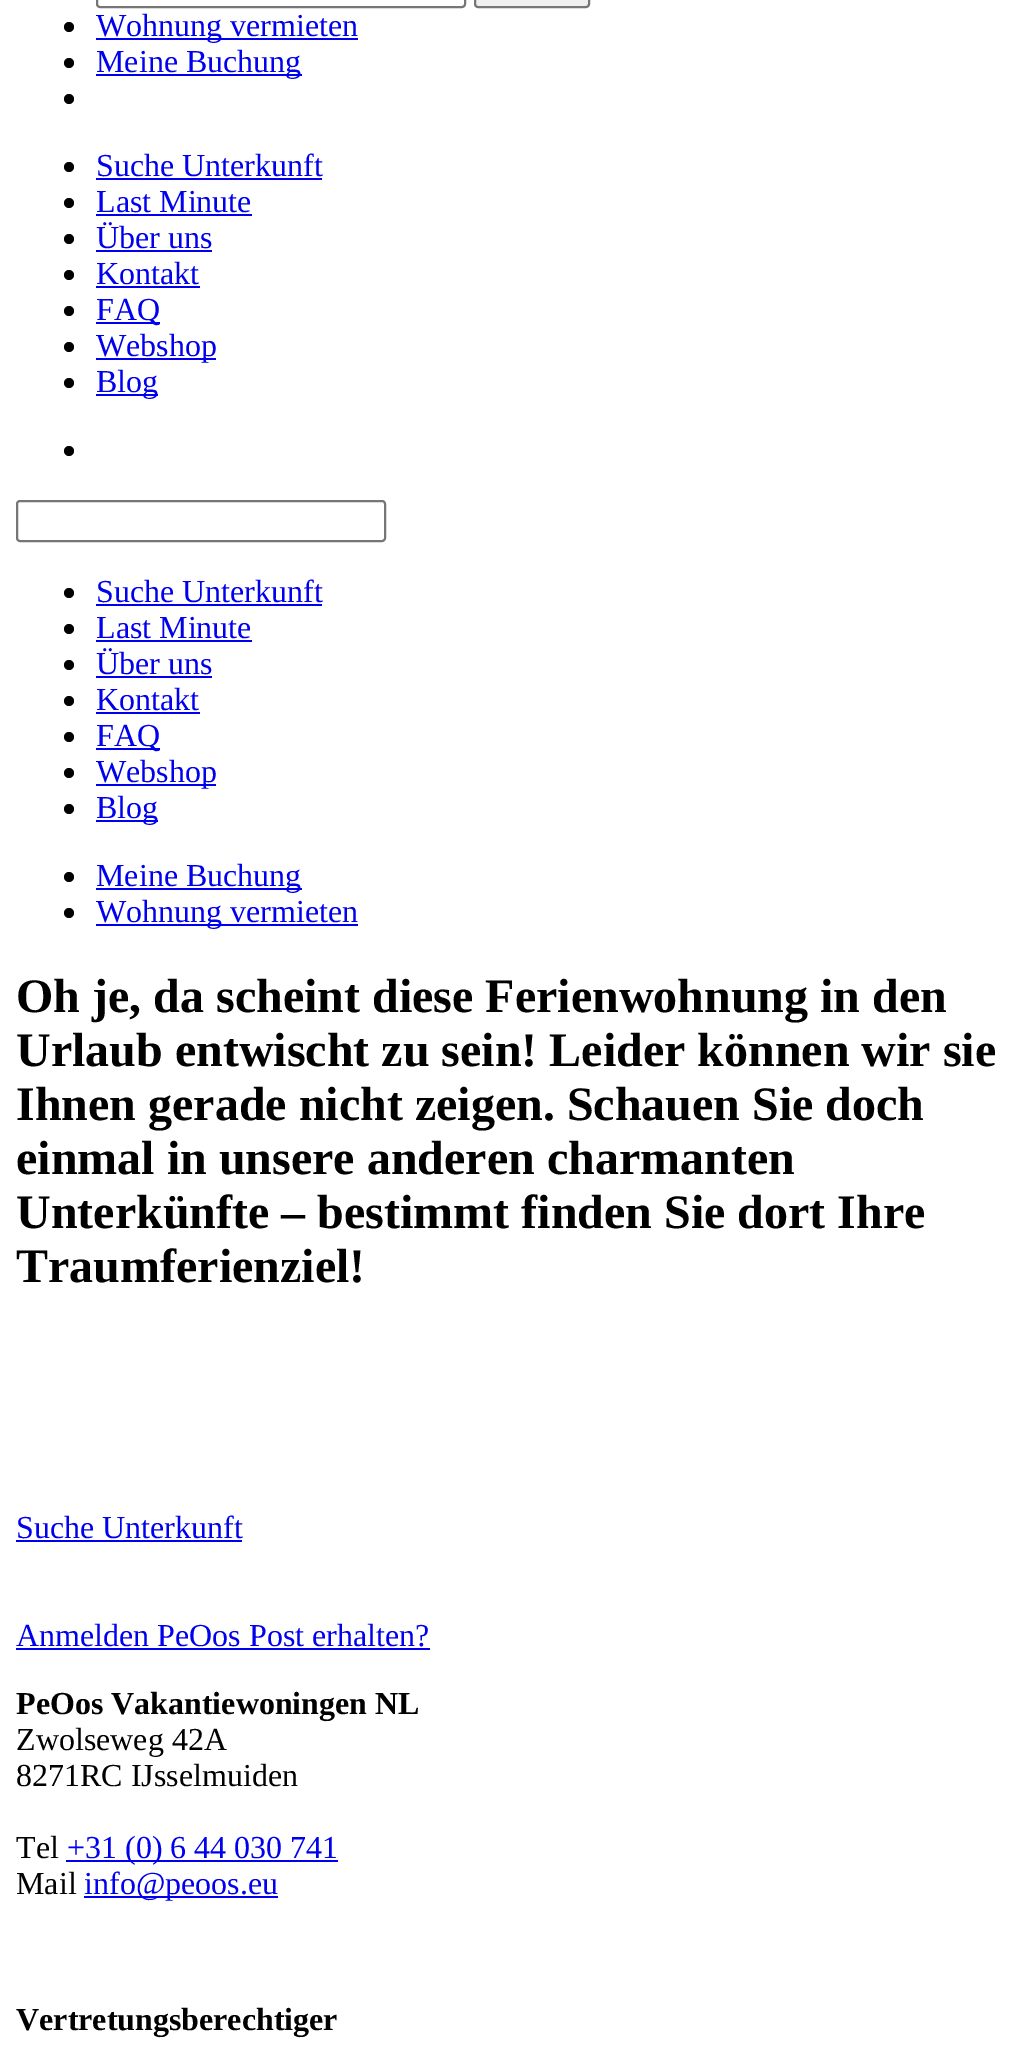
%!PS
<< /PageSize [1017 2047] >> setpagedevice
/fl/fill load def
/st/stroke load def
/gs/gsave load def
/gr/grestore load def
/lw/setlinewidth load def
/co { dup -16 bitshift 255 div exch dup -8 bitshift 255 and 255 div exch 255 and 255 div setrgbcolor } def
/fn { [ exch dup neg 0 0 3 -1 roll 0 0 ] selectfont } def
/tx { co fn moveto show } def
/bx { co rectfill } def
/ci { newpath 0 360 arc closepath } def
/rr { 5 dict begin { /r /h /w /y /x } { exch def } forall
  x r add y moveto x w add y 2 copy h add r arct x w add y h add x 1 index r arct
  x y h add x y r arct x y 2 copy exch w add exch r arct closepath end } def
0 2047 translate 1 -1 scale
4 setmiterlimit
0 0 1017 2047 16#FFFFFF bx
16#767676 co
2 lw
97 -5 368 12 3 rr st
16#EFEFEF co
475 -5 114 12 3 rr gs fl gr
16#767676 co
st
16#000000 co
69 27 5 ci fl
96 38 262 2 16#0000EE bx
16#000000 co
69 63 5 ci fl
96 74 206 2 16#0000EE bx
16#000000 co
69 99 5 ci fl
69 167 5 ci fl
96 178 226 2 16#0000EE bx
16#000000 co
69 203 5 ci fl
96 214 156 2 16#0000EE bx
16#000000 co
69 239 5 ci fl
96 250 116 2 16#0000EE bx
16#000000 co
69 275 5 ci fl
96 286 104 2 16#0000EE bx
16#000000 co
69 311 5 ci fl
96 322 64 2 16#0000EE bx
16#000000 co
69 347 5 ci fl
96 358 120 2 16#0000EE bx
16#000000 co
69 383 5 ci fl
96 394 62 2 16#0000EE bx
16#000000 co
69 451 5 ci fl
16#767676 co
17 501 368 40 3 rr st
16#000000 co
69 593 5 ci fl
96 604 226 2 16#0000EE bx
16#000000 co
69 629 5 ci fl
96 640 156 2 16#0000EE bx
16#000000 co
69 665 5 ci fl
96 676 116 2 16#0000EE bx
16#000000 co
69 701 5 ci fl
96 712 104 2 16#0000EE bx
16#000000 co
69 737 5 ci fl
96 748 64 2 16#0000EE bx
16#000000 co
69 773 5 ci fl
96 784 120 2 16#0000EE bx
16#000000 co
69 809 5 ci fl
96 820 62 2 16#0000EE bx
16#000000 co
69 877 5 ci fl
96 888 206 2 16#0000EE bx
16#000000 co
69 913 5 ci fl
96 924 262 2 16#0000EE bx
16 1540 226 2 16#0000EE bx
16 1648 414 2 16#0000EE bx
66 1860 272 2 16#0000EE bx
84 1896 194 2 16#0000EE bx
(Wohnung vermieten) 96 36 /LiberationSerif-Regular 32 16#0000EE tx
(Meine Buchung) 96 72 /LiberationSerif-Regular 32 16#0000EE tx
(Suche Unterkunft) 96 176 /LiberationSerif-Regular 32 16#0000EE tx
(Last Minute) 96 212 /LiberationSerif-Regular 32 16#0000EE tx
(Über uns) 96 248 /LiberationSerif-Regular 32 16#0000EE tx
(Kontakt) 96 284 /LiberationSerif-Regular 32 16#0000EE tx
(FAQ) 96 320 /LiberationSerif-Regular 32 16#0000EE tx
(Webshop) 96 356 /LiberationSerif-Regular 32 16#0000EE tx
(Blog) 96 392 /LiberationSerif-Regular 32 16#0000EE tx
(Suche Unterkunft) 96 602 /LiberationSerif-Regular 32 16#0000EE tx
(Last Minute) 96 638 /LiberationSerif-Regular 32 16#0000EE tx
(Über uns) 96 674 /LiberationSerif-Regular 32 16#0000EE tx
(Kontakt) 96 710 /LiberationSerif-Regular 32 16#0000EE tx
(FAQ) 96 746 /LiberationSerif-Regular 32 16#0000EE tx
(Webshop) 96 782 /LiberationSerif-Regular 32 16#0000EE tx
(Blog) 96 818 /LiberationSerif-Regular 32 16#0000EE tx
(Meine Buchung) 96 886 /LiberationSerif-Regular 32 16#0000EE tx
(Wohnung vermieten) 96 922 /LiberationSerif-Regular 32 16#0000EE tx
(Oh je, da scheint diese Ferienwohnung in den) 16 1012 /LiberationSerif-Bold 48 16#000000 tx
(Urlaub entwischt zu sein! Leider können wir sie) 16 1066 /LiberationSerif-Bold 48 16#000000 tx
(Ihnen gerade nicht zeigen. Schauen Sie doch) 16 1120 /LiberationSerif-Bold 48 16#000000 tx
(einmal in unsere anderen charmanten) 16 1174 /LiberationSerif-Bold 48 16#000000 tx
(Unterkünfte – bestimmt finden Sie dort Ihre) 16 1228 /LiberationSerif-Bold 48 16#000000 tx
(Traumferienziel!) 16 1282 /LiberationSerif-Bold 48 16#000000 tx
(Suche Unterkunft) 16 1538 /LiberationSerif-Regular 32 16#0000EE tx
(Anmelden PeOos Post erhalten?) 16 1646 /LiberationSerif-Regular 32 16#0000EE tx
(PeOos Vakantiewoningen NL) 16 1714 /LiberationSerif-Bold 32 16#000000 tx
(Zwolseweg 42A) 16 1750 /LiberationSerif-Regular 32 16#000000 tx
(8271RC IJsselmuiden) 16 1786 /LiberationSerif-Regular 32 16#000000 tx
(Tel) 16 1858 /LiberationSerif-Regular 32 16#000000 tx
(+31 \(0\) 6 44 030 741) 67 1858 /LiberationSerif-Regular 32 16#0000EE tx
(Mail) 16 1894 /LiberationSerif-Regular 32 16#000000 tx
(info@peoos.eu) 84 1894 /LiberationSerif-Regular 32 16#0000EE tx
(Vertretungsberechtiger) 16 2030 /LiberationSerif-Bold 32 16#000000 tx
showpage
